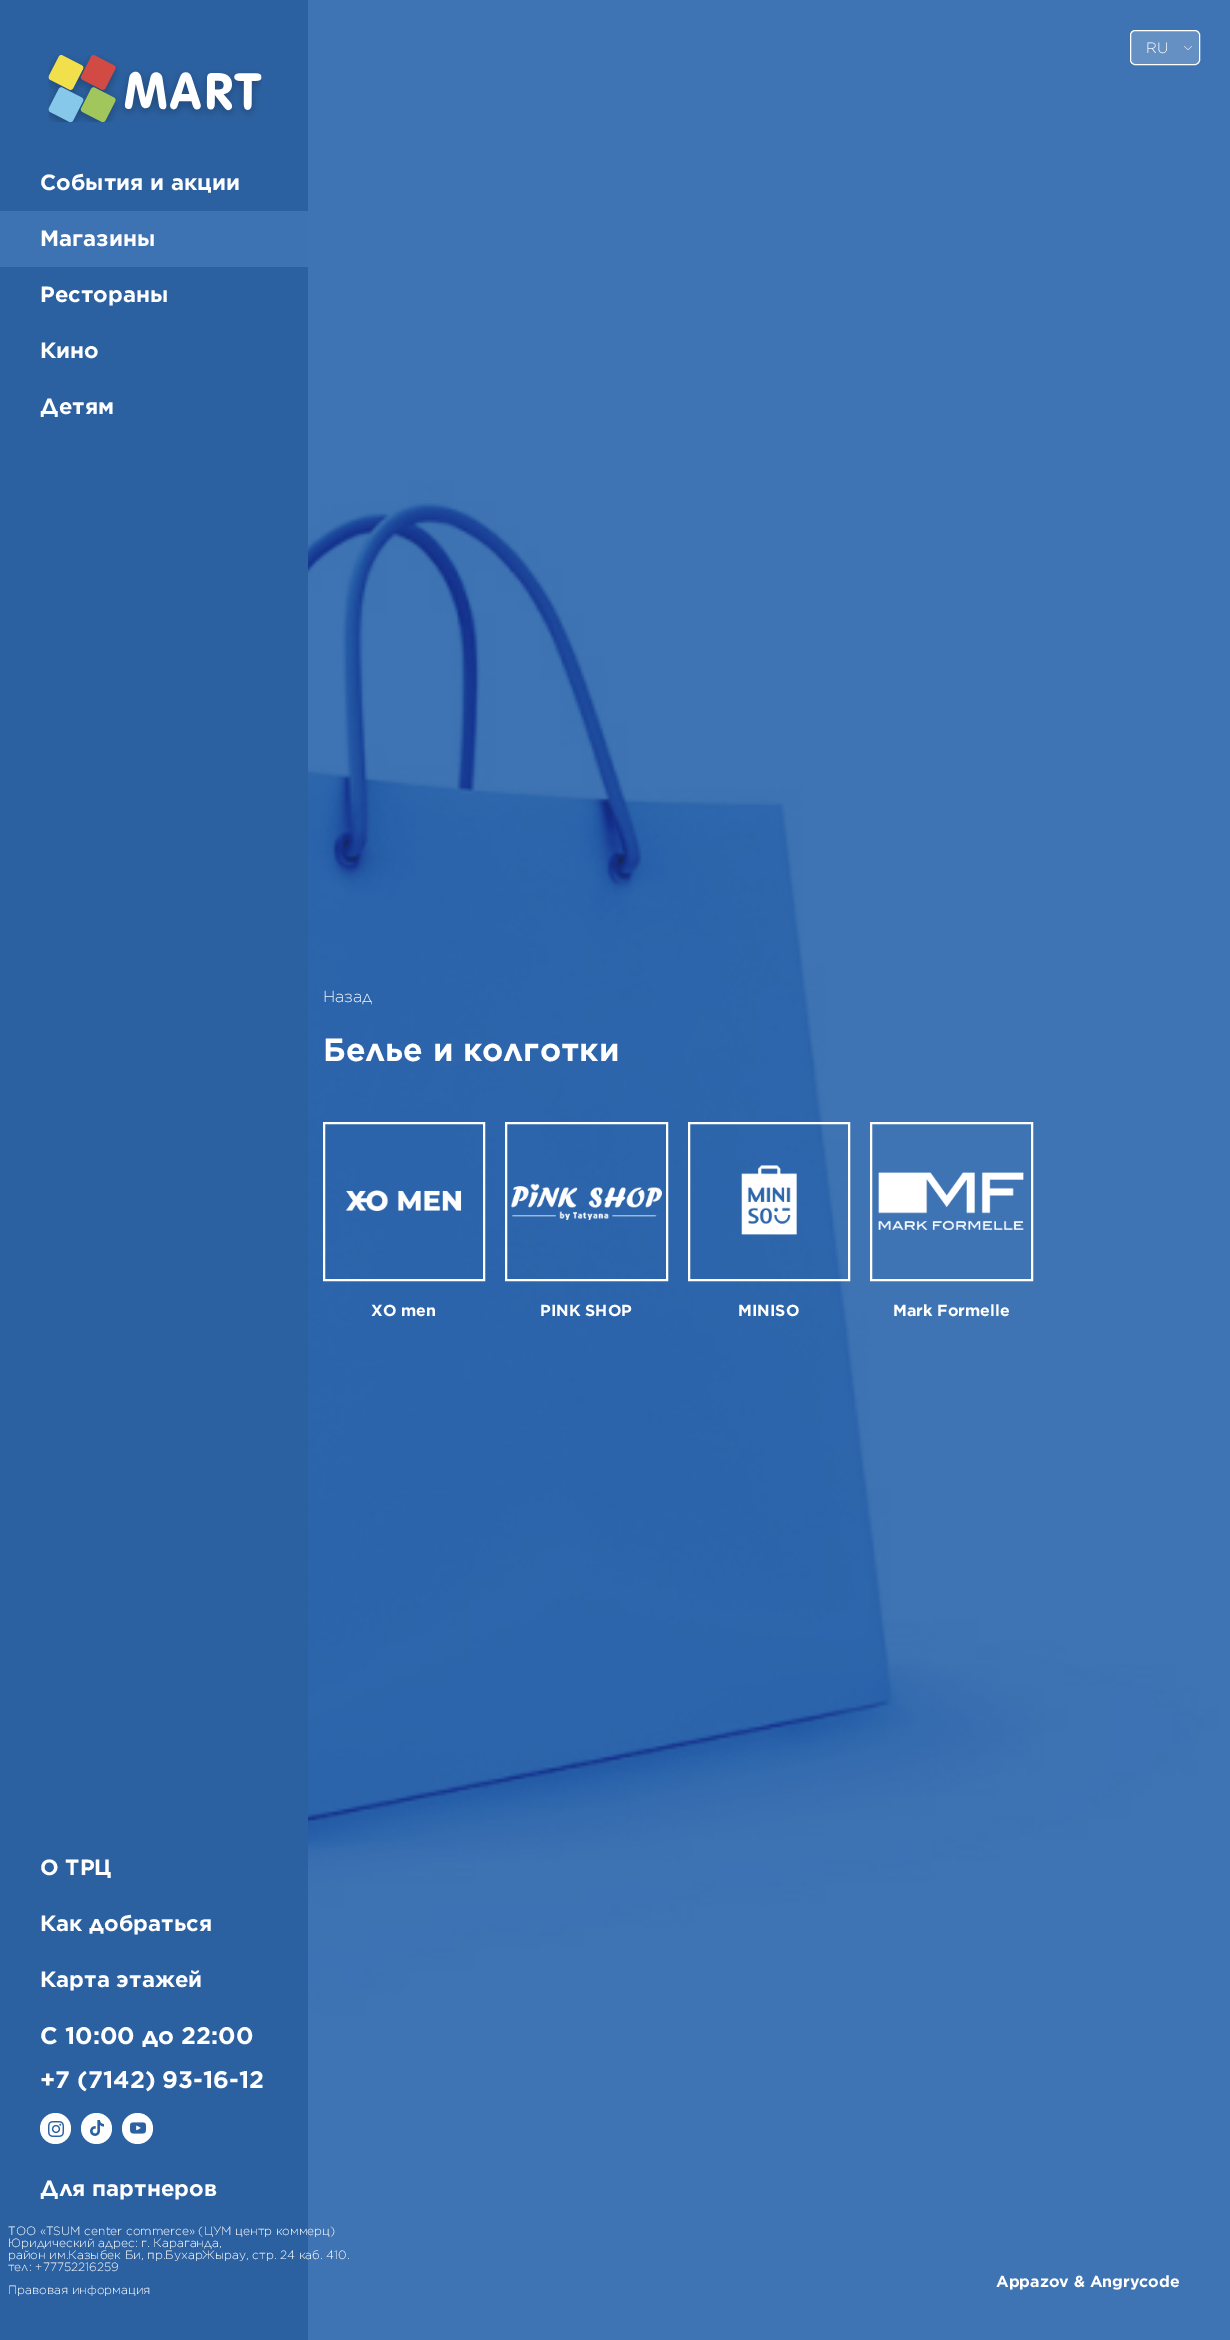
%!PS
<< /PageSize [1230 2340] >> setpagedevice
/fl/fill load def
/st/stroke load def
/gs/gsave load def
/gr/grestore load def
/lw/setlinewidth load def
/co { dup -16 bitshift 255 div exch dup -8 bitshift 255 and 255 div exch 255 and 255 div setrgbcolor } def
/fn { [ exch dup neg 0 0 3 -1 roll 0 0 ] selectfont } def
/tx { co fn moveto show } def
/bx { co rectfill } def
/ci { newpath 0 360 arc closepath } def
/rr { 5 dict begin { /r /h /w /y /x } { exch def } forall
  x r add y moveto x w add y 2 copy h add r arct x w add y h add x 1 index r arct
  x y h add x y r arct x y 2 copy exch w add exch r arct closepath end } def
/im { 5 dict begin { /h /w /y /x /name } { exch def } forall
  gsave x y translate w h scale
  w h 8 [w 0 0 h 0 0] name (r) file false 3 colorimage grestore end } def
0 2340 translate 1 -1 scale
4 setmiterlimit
0 0 1230 2340 16#FFFFFF bx
(media/6.raw) 308 0 922 2340 im
16#6590C3 co
1130.5 30.5 69 34 4.5 rr gs fl gr
16#FFFFFF co
st
(media/1.raw) 1184 46 8 4 im
0 0 308 2340 16#2C61A1 bx
(media/2.raw) 48 55 214 68 im
0 211 308 56 16#3E73B3 bx
16#FFFFFF co
55.5 2128.5 15.5 ci fl
(media/3.raw) 48 2121 16 16 im
96.5 2128.5 15.5 ci fl
(media/4.raw) 90 2120 14 16 im
137.5 2128.5 15.5 ci fl
(media/5.raw) 130 2122 16 12 im
2 lw
324 1123 160 157 rectstroke
(media/7.raw) 345 1190 117 21 im
506 1123 161 157 rectstroke
(media/8.raw) 511 1183 151 37 im
689 1123 160 157 rectstroke
(media/9.raw) 741 1165 56 70 im
871 1123 161 157 rectstroke
(media/10.raw) 878 1172 146 58 im
(RU) 1146 53 /Gotham-Light 15 16#FFFFFF tx
(События и акции) 40 190 /Gotham-Bold 22 16#FFFFFF tx
(Магазины) 40 246 /Gotham-Bold 22 16#FFFFFF tx
(Рестораны) 40 302 /Gotham-Bold 22 16#FFFFFF tx
(Кино) 40 358 /Gotham-Bold 22 16#FFFFFF tx
(Детям) 40 414 /Gotham-Bold 22 16#FFFFFF tx
(О ТРЦ) 40 1875 /Gotham-Bold 22 16#FFFFFF tx
(Как добраться) 40 1931 /Gotham-Bold 22 16#FFFFFF tx
(Карта этажей) 40 1987 /Gotham-Bold 22 16#FFFFFF tx
(С 10:00 до 22:00) 40 2044 /Gotham-Bold 24 16#FFFFFF tx
(+7 \(7142\) 93-16-12) 40 2088 /Gotham-Bold 24 16#FFFFFF tx
(Для партнеров) 40 2196 /Gotham-Bold 22 16#FFFFFF tx
(ТОО «TSUM center commerce» \(ЦУМ центр коммерц\)) 8 2235 /Gotham-Light 12 16#FFFFFF tx
(Юридический адрес: г. Караганда,) 8 2247 /Gotham-Light 12 16#FFFFFF tx
(район им.Казыбек Би, пр.БухарЖырау, стр. 24 каб. 410.) 8 2259 /Gotham-Light 12 16#FFFFFF tx
(тел: +77752216259) 8 2271 /Gotham-Light 12 16#FFFFFF tx
(Правовая информация) 8 2294 /Gotham-Light 12 16#FFFFFF tx
(Назад) 323 1002 /Gotham-Light 16 16#FFFFFF tx
(Белье и колготки) 323 1061 /Gotham-Bold 32 16#FFFFFF tx
(XO men) 371 1316 /Gotham-Bold 16 16#FFFFFF tx
(PINK SHOP) 540 1316 /Gotham-Bold 16 16#FFFFFF tx
(MINISO) 738 1316 /Gotham-Bold 16 16#FFFFFF tx
(Mark Formelle) 893 1316 /Gotham-Bold 16 16#FFFFFF tx
(Appazov & Angrycode) 996 2287 /Gotham-Bold 16 16#FFFFFF tx
showpage
